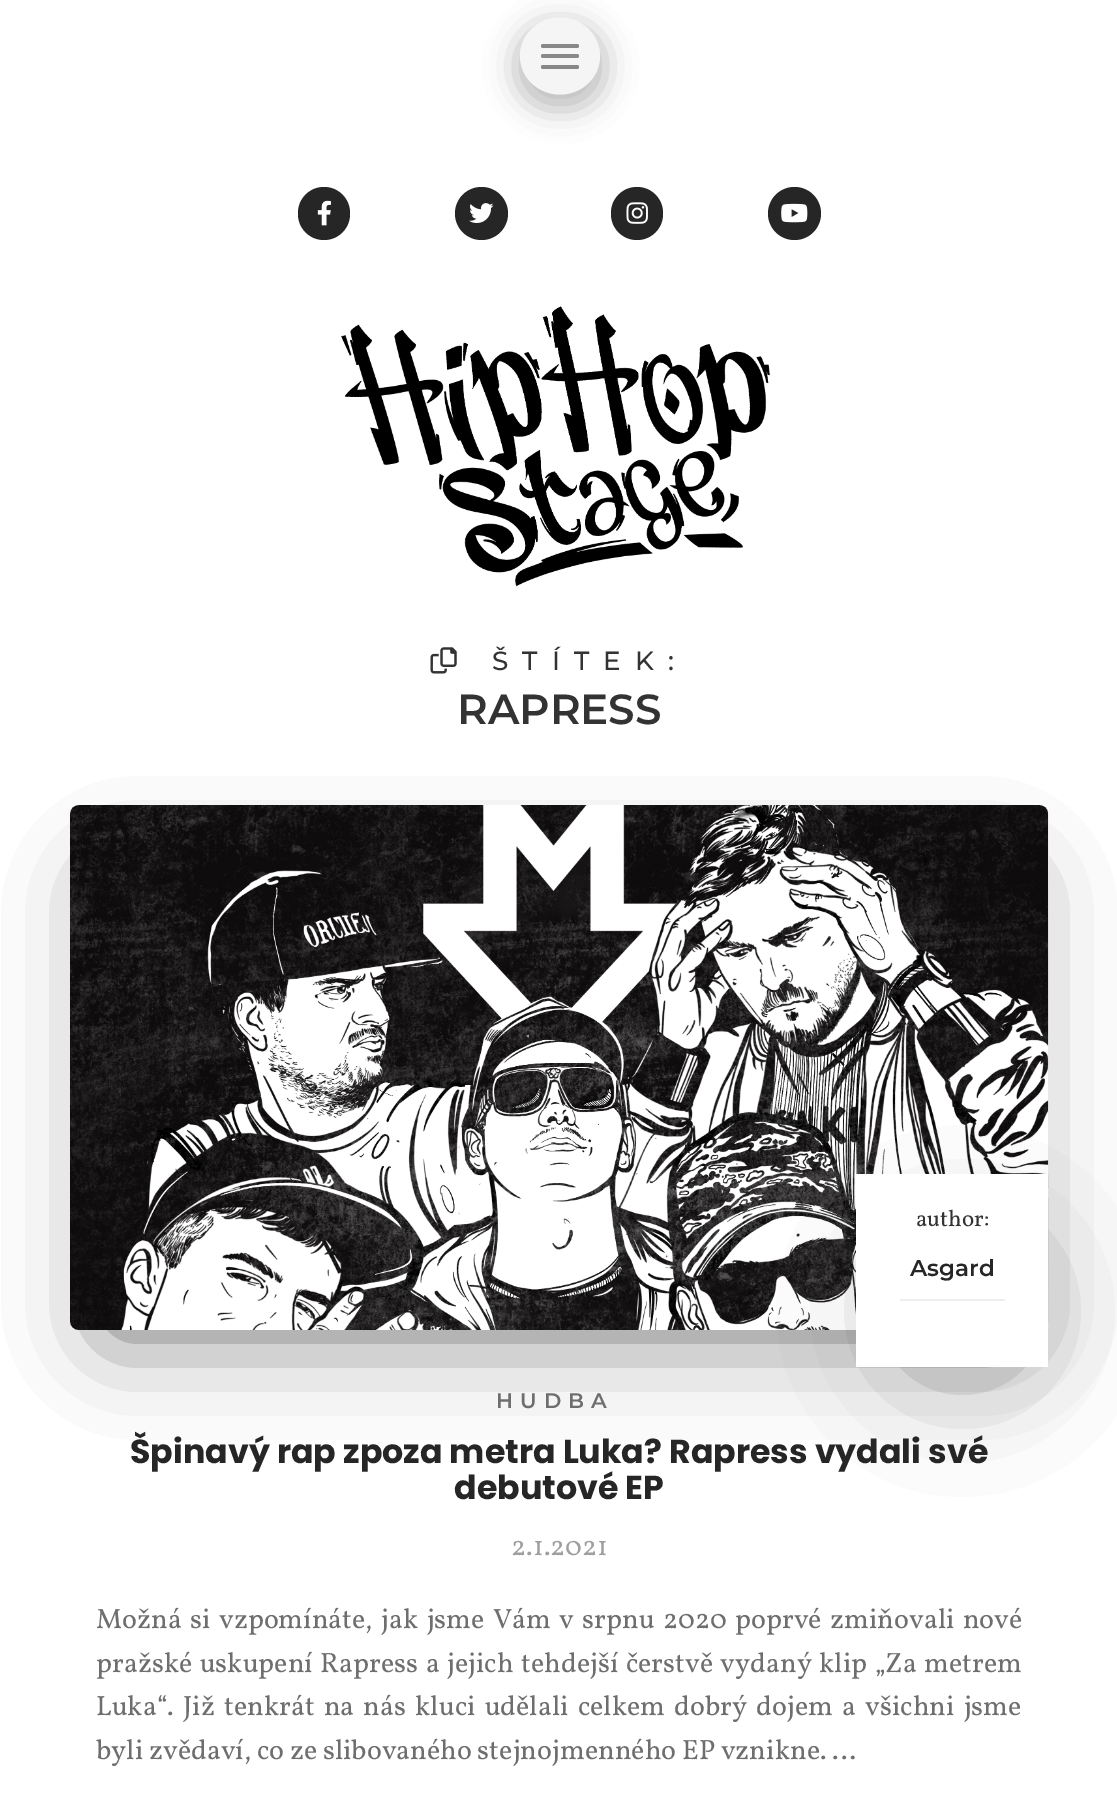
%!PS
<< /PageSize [1117 1794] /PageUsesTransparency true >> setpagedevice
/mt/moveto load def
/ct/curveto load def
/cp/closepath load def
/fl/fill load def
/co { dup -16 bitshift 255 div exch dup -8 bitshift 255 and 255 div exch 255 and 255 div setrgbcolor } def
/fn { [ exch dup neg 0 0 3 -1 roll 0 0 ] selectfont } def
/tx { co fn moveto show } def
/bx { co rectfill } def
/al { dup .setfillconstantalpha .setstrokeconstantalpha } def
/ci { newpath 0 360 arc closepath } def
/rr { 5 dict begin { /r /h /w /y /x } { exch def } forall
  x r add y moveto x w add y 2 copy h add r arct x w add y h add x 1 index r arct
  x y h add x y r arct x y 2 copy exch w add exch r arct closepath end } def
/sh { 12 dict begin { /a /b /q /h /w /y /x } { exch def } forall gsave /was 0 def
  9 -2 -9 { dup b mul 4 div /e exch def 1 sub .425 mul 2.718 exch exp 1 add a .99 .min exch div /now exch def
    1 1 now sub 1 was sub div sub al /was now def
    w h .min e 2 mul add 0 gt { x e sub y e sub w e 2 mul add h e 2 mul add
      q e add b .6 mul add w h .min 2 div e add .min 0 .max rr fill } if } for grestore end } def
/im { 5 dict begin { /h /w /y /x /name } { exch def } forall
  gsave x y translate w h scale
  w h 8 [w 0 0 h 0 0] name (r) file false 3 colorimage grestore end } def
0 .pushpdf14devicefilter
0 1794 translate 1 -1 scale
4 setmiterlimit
0 0 1117 1794 16#FFFFFF bx
16#000000 co
515 23 91 87 43.5 15 .25 sh
16#F5F5F5 co
560 17.5 mt 582 17.5 600 34.5 600 56 ct 600 77.5 582 94.5 560 94.5 ct 538 94.5 520 77.5 520 56 ct 520 34.5 538 17.5 560 17.5 ct cp fl
16#888888 co
541 44 38 4 2 rr fl
541 54 38 4 2 rr fl
541 65 38 4 2 rr fl
16#262626 co
298 187 52 53 26 rr fl
(media/1.raw) 317 200 14 26 im
481.5 213.5 26.5 ci fl
(media/2.raw) 469 203 25 20 im
611 187 52 53 26 rr fl
(media/3.raw) 626 202 22 22 im
794.5 213.5 26.5 ci fl
(media/4.raw) 781 203 27 20 im
(media/5.raw) 341 306 429 281 im
(media/6.raw) 430 647 27 27 im
16#000000 co
109 884 901 448 0 48 .6 sh
(media/7.raw) 70 805 979 525 im
929 1278 67 66 0 68 .5 sh
856 1174 192 193 16#FFFFFF bx
900 1299 105 2 16#EEEEEE bx
/Montserrat-Medium 26.25 fn
16#333333 co
492 670 mt 14 0 (ŠTÍTEK:) ashow
(RAPRESS) 457 724 /Montserrat-SemiBold 42 16#333333 tx
(author:) 916 1226 /Vollkorn-Regular 23 16#333333 tx
(Asgard) 910 1276 /Montserrat-SemiBold 23 16#262626 tx
/Montserrat-SemiBold 21 fn
16#6E6E6E co
496 1408 mt 7 0 (HUDBA) ashow
(Špinavý rap zpoza metra Luka? Rapress vydali své) 130 1463 /Poppins-Bold 33.25 16#262626 tx
(debutové EP) 454 1499 /Poppins-Bold 33.25 16#262626 tx
(2.1.2021) 511 1555 /Vollkorn-Regular 28 16#9F9F9F tx
16#6E6E6E co
96 1628 mt 2.75 0 32 (Možná si vzpomínáte, jak jsme Vám v srpnu 2020 poprvé zmiňovali nové) widthshow
96 1672 mt 1.75 0 32 (pražské uskupení Rapress a jejich tehdejší čerstvě vydaný klip „Za metrem) widthshow
96 1715 mt 3.5 0 32 (Luka“. Již tenkrát na nás kluci udělali celkem dobrý dojem a všichni jsme) widthshow
(byli zvědaví, co ze slibovaného stejnojmenného EP vznikne. …) 96 1759 /Vollkorn-Regular 28 16#6E6E6E tx
.poppdf14devicefilter showpage
